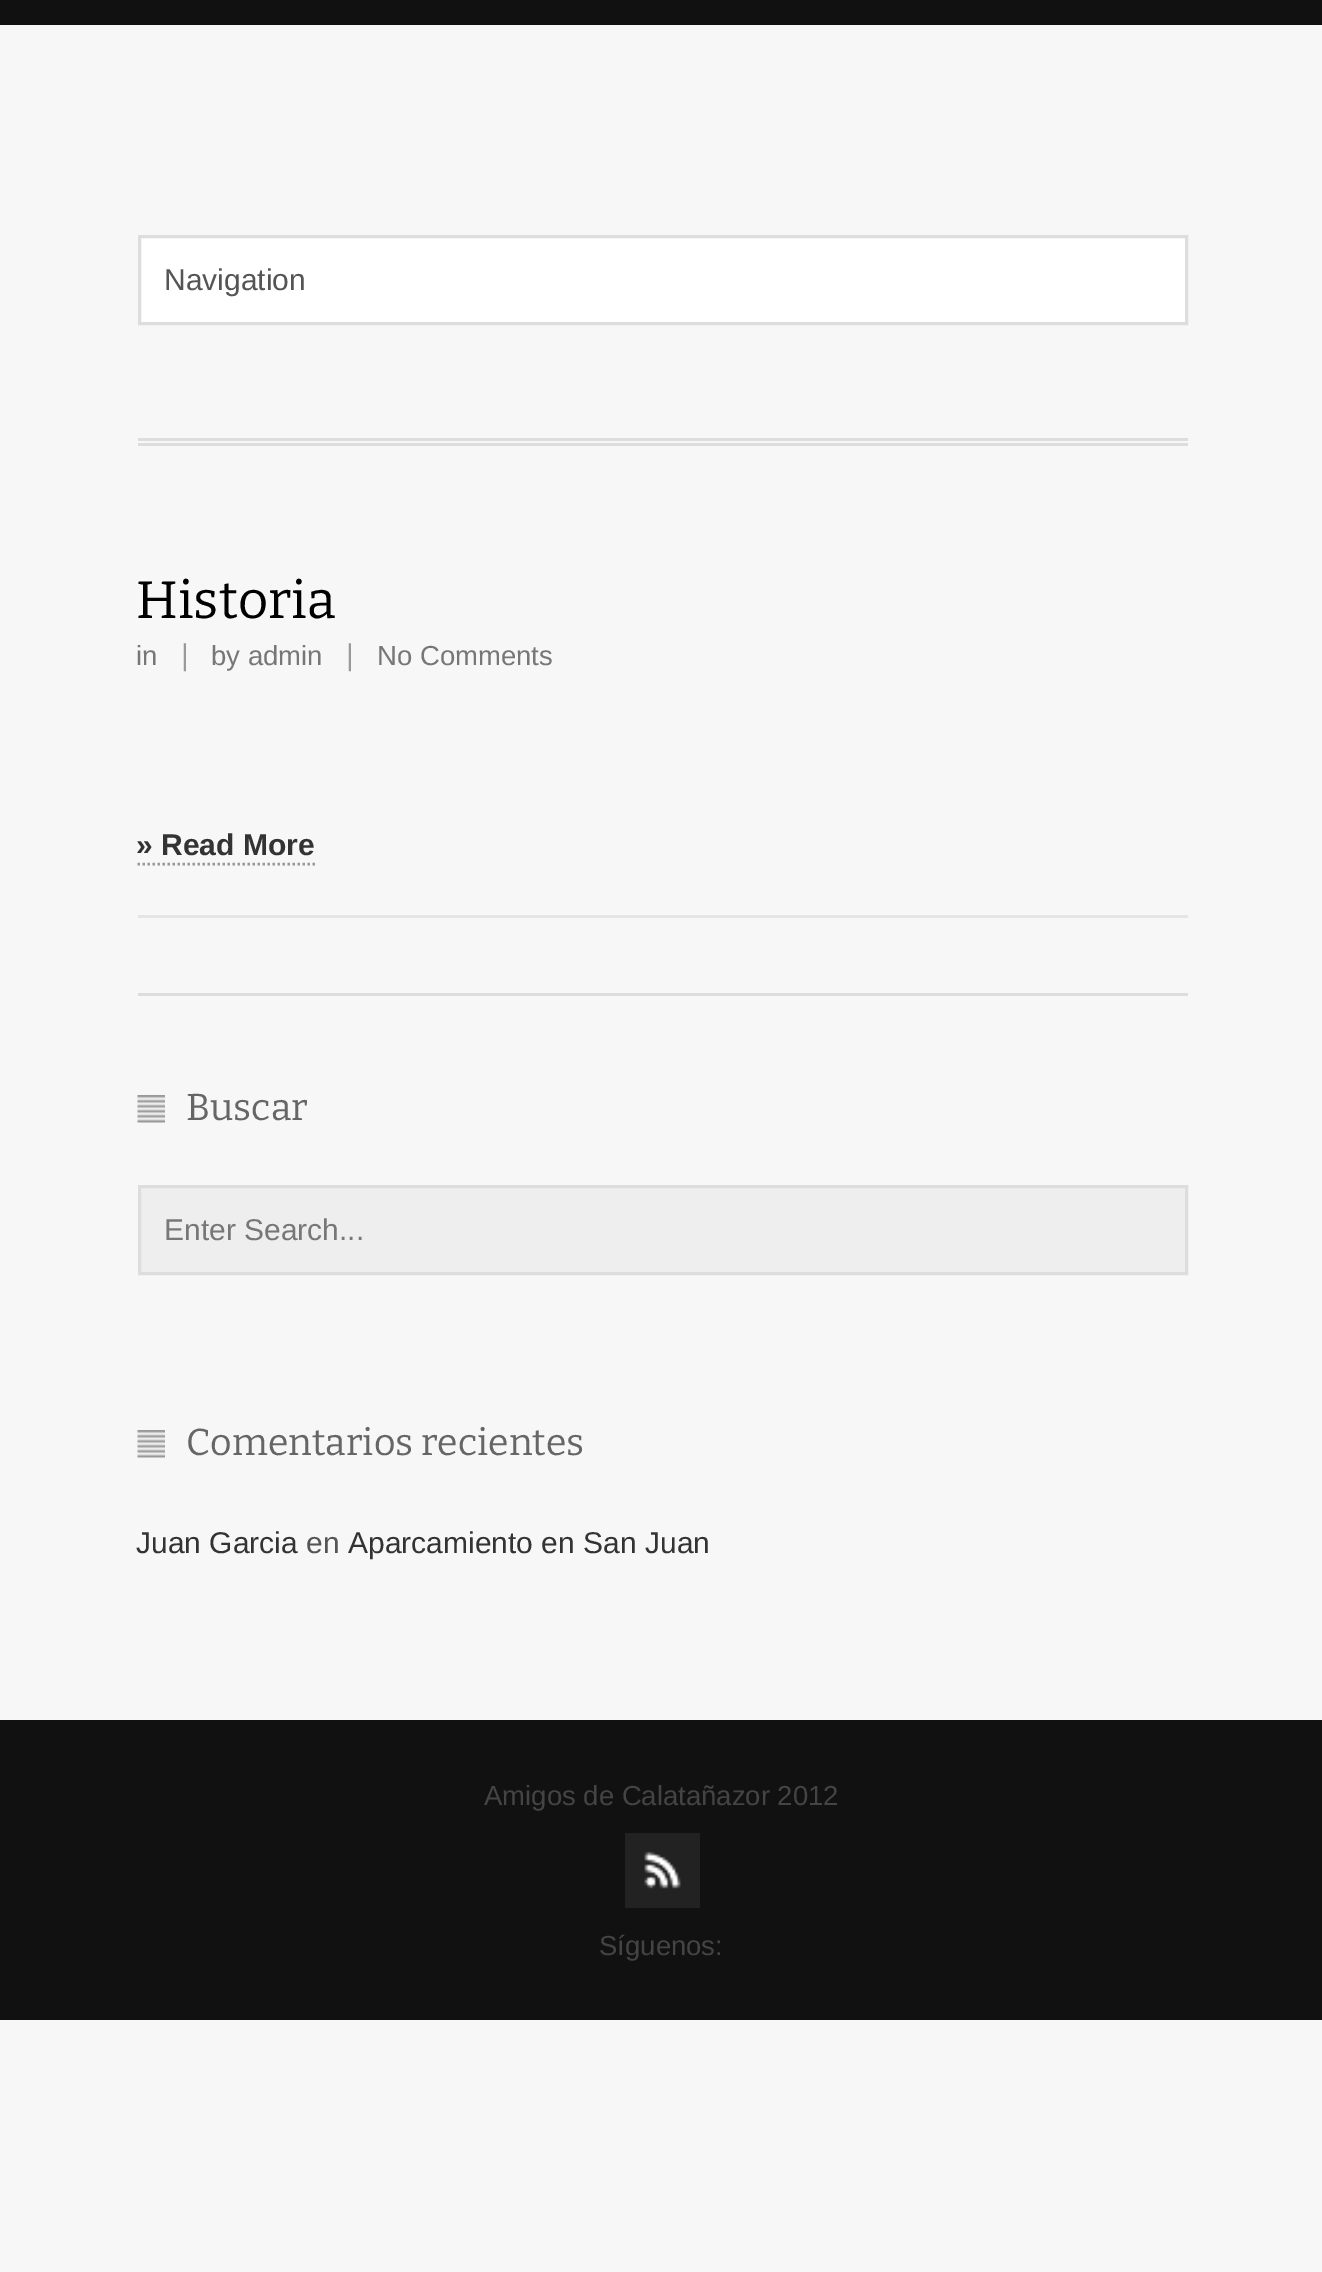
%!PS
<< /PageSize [1322 2272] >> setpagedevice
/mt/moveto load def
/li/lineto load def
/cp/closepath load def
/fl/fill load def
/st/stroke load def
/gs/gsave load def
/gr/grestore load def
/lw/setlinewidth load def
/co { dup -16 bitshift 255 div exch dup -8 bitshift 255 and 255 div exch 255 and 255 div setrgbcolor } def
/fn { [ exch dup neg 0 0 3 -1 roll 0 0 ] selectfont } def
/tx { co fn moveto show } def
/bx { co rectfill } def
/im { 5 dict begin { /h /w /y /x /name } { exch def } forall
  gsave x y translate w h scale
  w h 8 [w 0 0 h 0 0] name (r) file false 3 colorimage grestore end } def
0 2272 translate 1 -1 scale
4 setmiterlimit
0 0 1322 2272 16#F7F7F7 bx
0 0 1322 25 16#111111 bx
16#FFFFFF co
139.5 236.5 mt 1186.5 236.5 li 1186.5 323.5 li 139.5 323.5 li cp gs fl gr
16#DDDDDD co
3 lw
st
138 438 1050 3 16#DDDDDD bx
138 443 1050 3 16#DDDDDD bx
138 915 1050 3 16#E5E5E5 bx
16#999999 co
2.5 lw
[2.5 2.5] 0 setdash
137.5 864 mt 315 864 li st
138 993 1050 3 16#DDDDDD bx
(media/1.raw) 137 1095 28 28 im
16#EEEEEE co
139.5 1186.5 mt 1186.5 1186.5 li 1186.5 1273.5 li 139.5 1273.5 li cp gs fl gr
16#DDDDDD co
3 lw
[] 0 setdash
st
(media/1.raw) 137 1430 28 28 im
0 1720 1322 300 16#111111 bx
625 1833 75 75 16#222222 bx
(media/2.raw) 644 1851 37 38 im
(Navigation) 164 290 /LiberationSans-Regular 30 16#555555 tx
(Historia) 136 618 /Bitter-Thin 52.5 16#000000 tx
(in) 136 665 /LiberationSans-Regular 27.5 16#777777 tx
(|) 181 665 /LiberationSans-Regular 30 16#999999 tx
(by admin) 211 665 /LiberationSans-Regular 27.5 16#777777 tx
(|) 346 665 /LiberationSans-Regular 30 16#999999 tx
(No Comments) 377 665 /LiberationSans-Regular 27.5 16#777777 tx
(» Read More) 136 855 /LiberationSans-Bold 30 16#333333 tx
(Buscar) 186 1120 /Bitter-Thin 37.5 16#666666 tx
(Enter Search...) 164 1240 /LiberationSans-Regular 30 16#777777 tx
(Comentarios recientes) 186 1455 /Bitter-Thin 37.5 16#666666 tx
(Juan Garcia) 136 1553 /LiberationSans-Regular 30 16#333333 tx
(en) 306 1553 /LiberationSans-Regular 30 16#555555 tx
(Aparcamiento en San Juan) 348 1553 /LiberationSans-Regular 30 16#333333 tx
(Amigos de Calatañazor 2012) 484 1805 /LiberationSans-Regular 27.5 16#444444 tx
(Síguenos:) 599 1955 /LiberationSans-Regular 27.5 16#444444 tx
showpage
